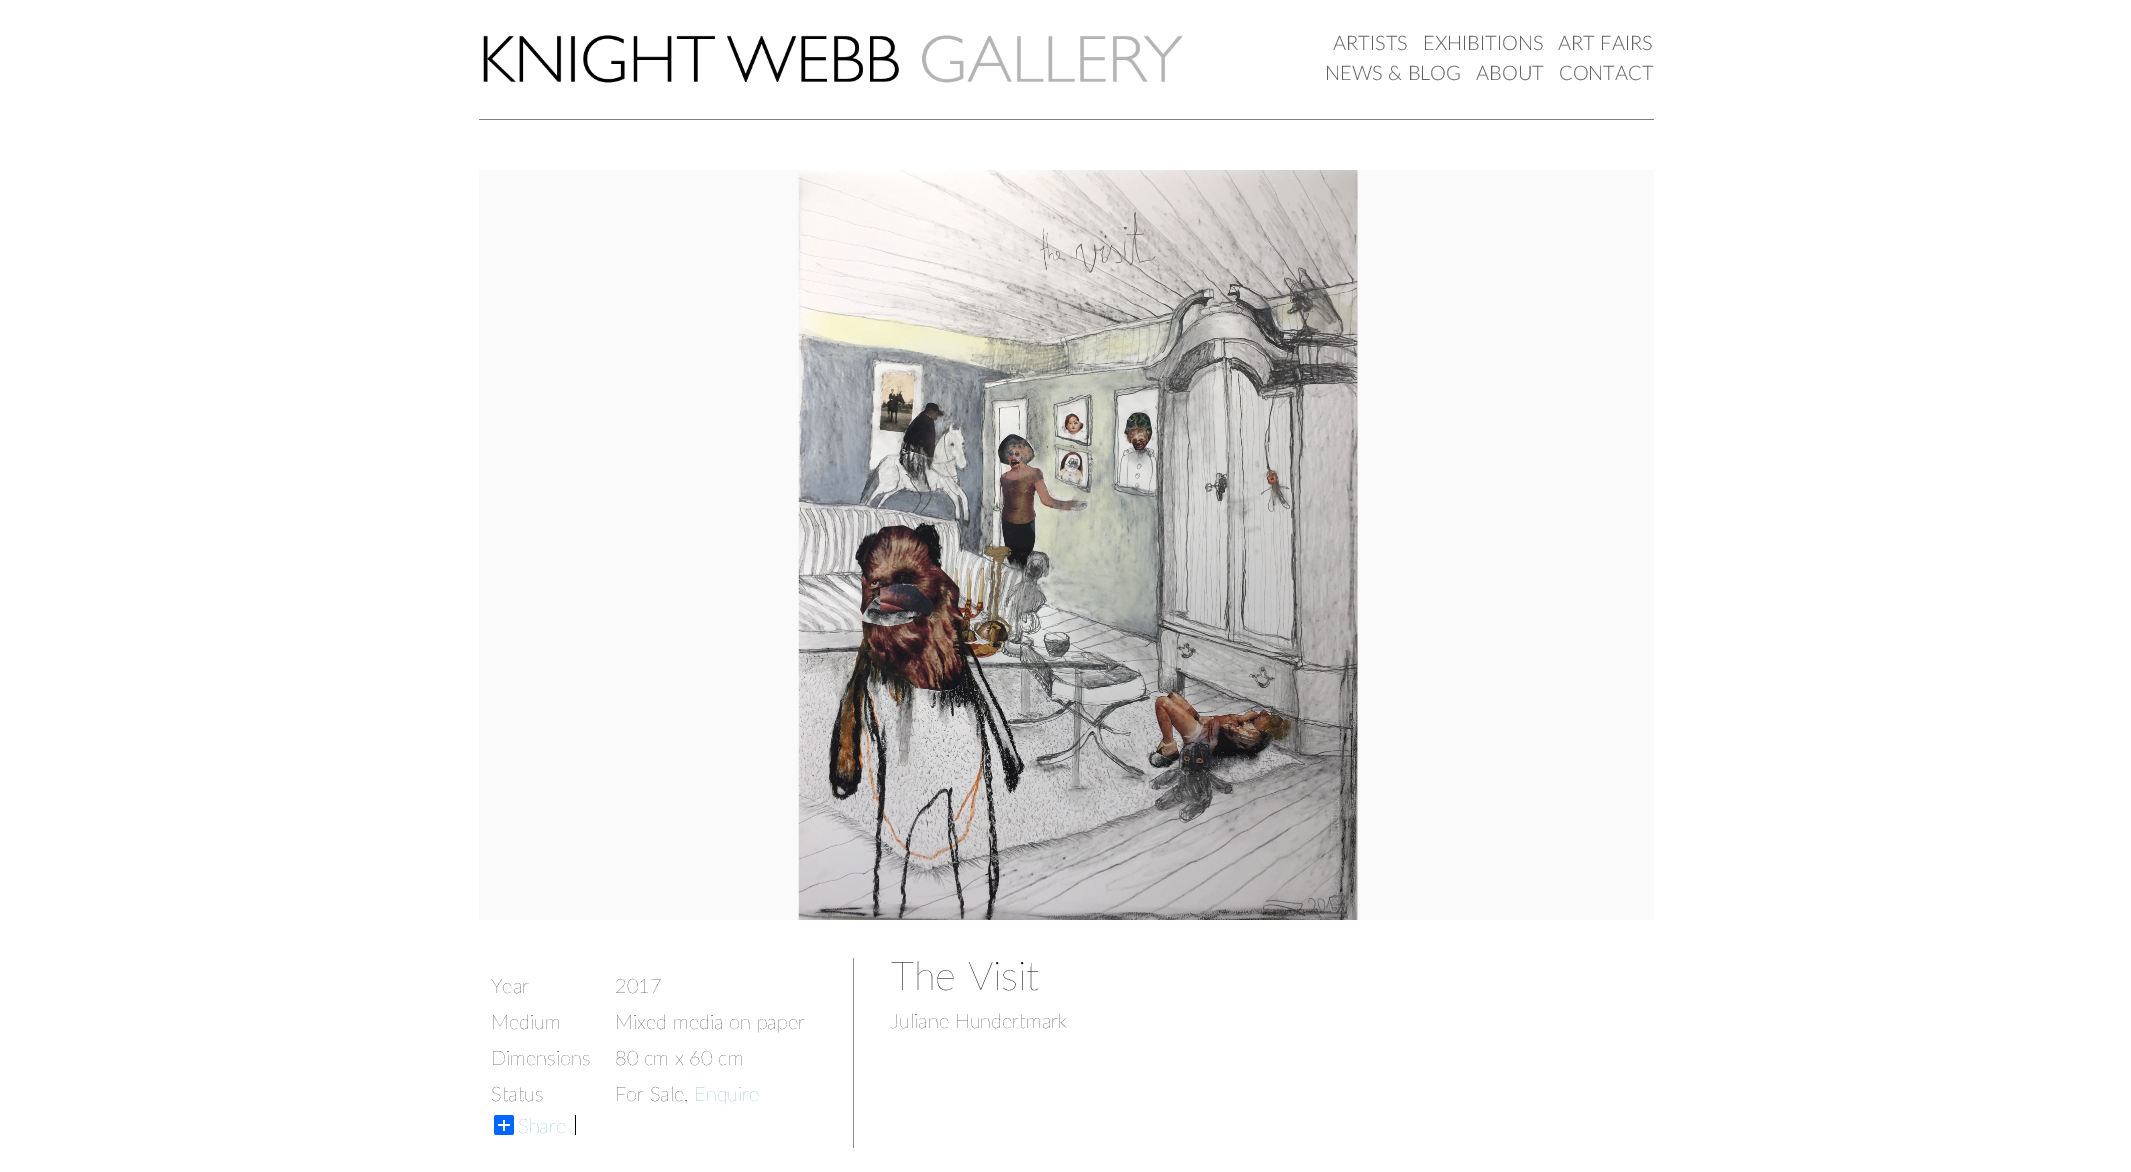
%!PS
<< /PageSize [2131 1172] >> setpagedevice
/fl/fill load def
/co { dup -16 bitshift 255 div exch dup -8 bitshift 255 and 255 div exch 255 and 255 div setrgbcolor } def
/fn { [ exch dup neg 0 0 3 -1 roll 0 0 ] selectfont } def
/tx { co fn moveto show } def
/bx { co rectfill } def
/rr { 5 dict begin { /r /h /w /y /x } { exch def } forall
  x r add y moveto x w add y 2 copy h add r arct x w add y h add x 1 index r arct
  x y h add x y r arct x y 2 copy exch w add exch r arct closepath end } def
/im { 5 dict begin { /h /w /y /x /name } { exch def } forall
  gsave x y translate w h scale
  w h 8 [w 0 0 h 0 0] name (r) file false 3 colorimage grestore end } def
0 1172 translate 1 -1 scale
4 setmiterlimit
0 0 2131 1172 16#FFFFFF bx
479 119 1175 1 16#808080 bx
(media/1.raw) 483 35 700 48 im
479 170 1175 750 16#FAFAFA bx
(media/2.raw) 798 170 560 750 im
853 958 1 190 16#909090 bx
16#0166FF co
494 1115 20 20 2.5 rr fl
503 1120 2 11 16#FFFFFF bx
498 1124 12 2 16#FFFFFF bx
575 1115 1 20 16#000000 bx
(ARTISTS) 1333 50 /Lato-Light 20 16#606060 tx
(EXHIBITIONS) 1423 50 /Lato-Light 20 16#606060 tx
(ART FAIRS) 1558 50 /Lato-Light 20 16#606060 tx
(NEWS & BLOG) 1325 80 /Lato-Light 20 16#606060 tx
(ABOUT) 1476 80 /Lato-Light 20 16#606060 tx
(CONTACT) 1559 80 /Lato-Light 20 16#606060 tx
(Year) 491 993 /Lato-ExtraLight 20 16#000000 tx
(2017) 615 993 /Lato-ExtraLight 20 16#000000 tx
(Medium) 491 1029 /Lato-ExtraLight 20 16#000000 tx
(Mixed media on paper) 615 1029 /Lato-ExtraLight 20 16#000000 tx
(Dimensions) 491 1065 /Lato-ExtraLight 20 16#000000 tx
(80 cm x 60 cm) 615 1065 /Lato-ExtraLight 20 16#000000 tx
(Status) 491 1101 /Lato-ExtraLight 20 16#000000 tx
(For Sale,) 615 1101 /Lato-ExtraLight 20 16#000000 tx
(Enquire) 694 1101 /Lato-ExtraLight 20 16#58ACAB tx
(Share) 518 1133 /Lato-ExtraLight 20 16#58ACAB tx
(The Visit) 891 990 /Lato-ExtraLight 40 16#000000 tx
(Juliane Hundertmark) 891 1028 /Lato-ExtraLight 20 16#000000 tx
showpage
